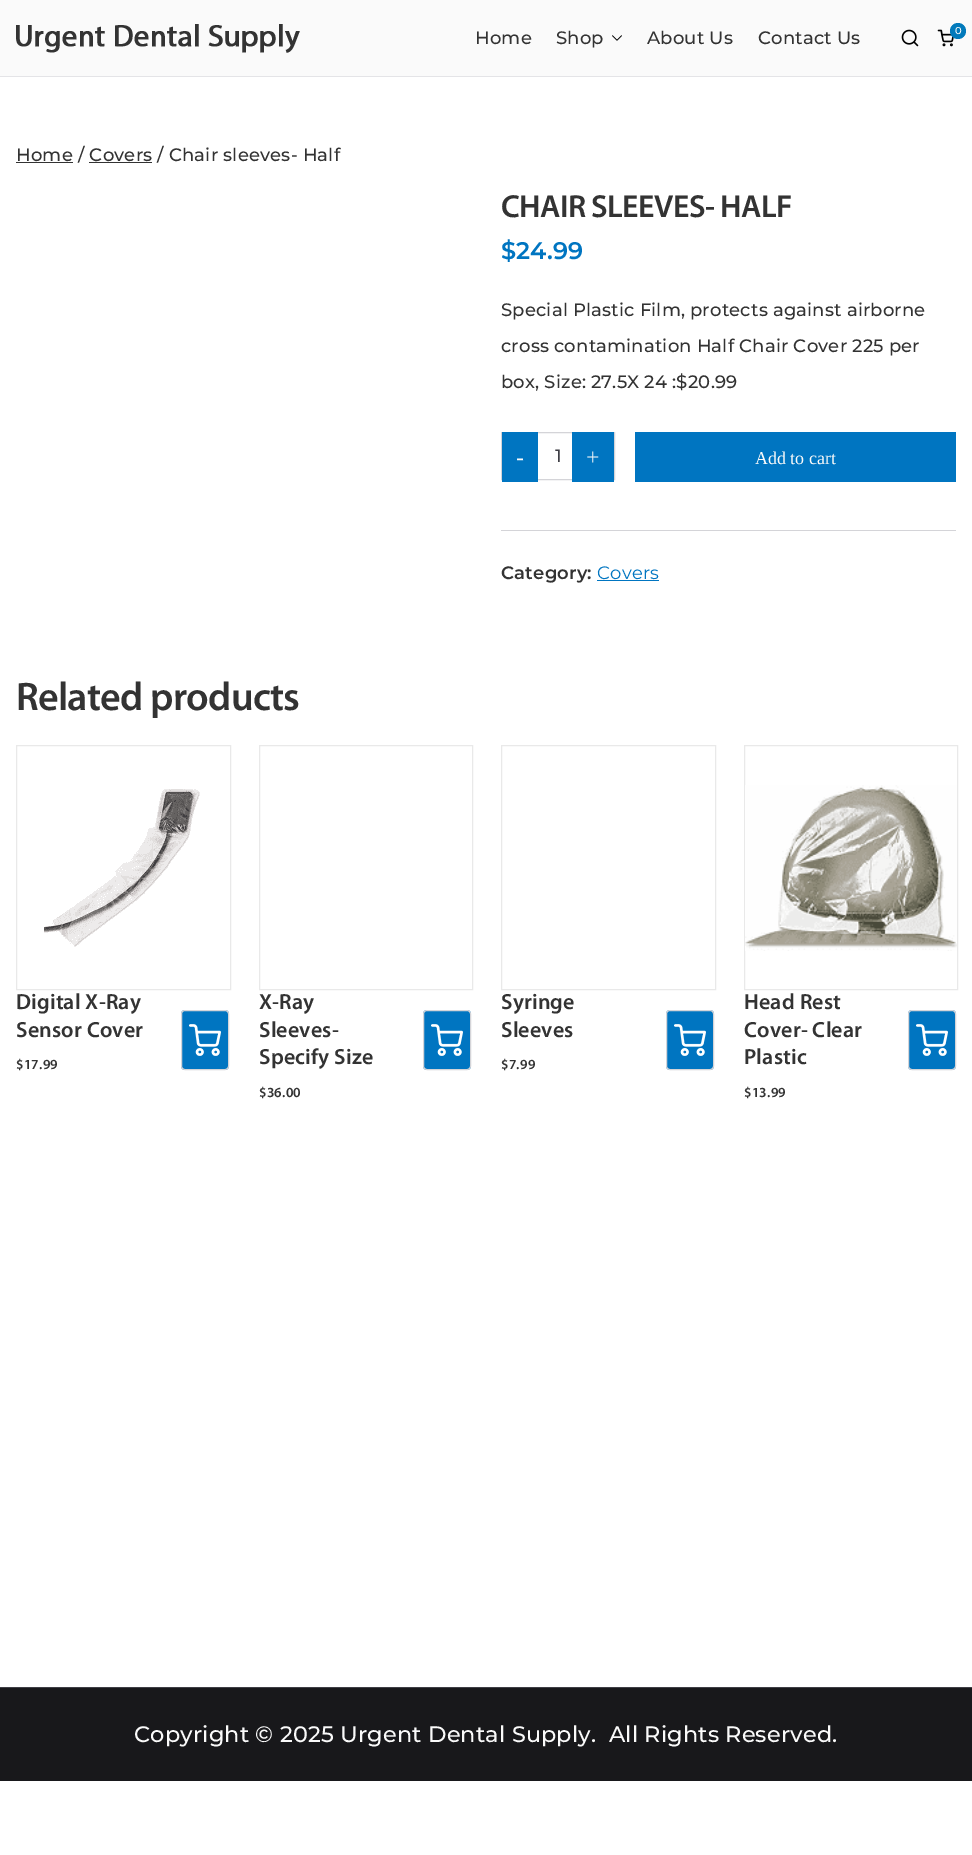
%!PS
<< /PageSize [972 1855] >> setpagedevice
/mt/moveto load def
/fl/fill load def
/st/stroke load def
/co { dup -16 bitshift 255 div exch dup -8 bitshift 255 and 255 div exch 255 and 255 div setrgbcolor } def
/fn { [ exch dup neg 0 0 3 -1 roll 0 0 ] selectfont } def
/tx { co fn moveto show } def
/bx { co rectfill } def
/ci { newpath 0 360 arc closepath } def
/rr { 5 dict begin { /r /h /w /y /x } { exch def } forall
  x r add y moveto x w add y 2 copy h add r arct x w add y h add x 1 index r arct
  x y h add x y r arct x y 2 copy exch w add exch r arct closepath end } def
/im { 5 dict begin { /h /w /y /x /name } { exch def } forall
  gsave x y translate w h scale
  w h 8 [w 0 0 h 0 0] name (r) file false 3 colorimage grestore end } def
0 1855 translate 1 -1 scale
4 setmiterlimit
0 0 972 1855 16#FFFFFF bx
0 0 972 76 16#FAFAFA bx
0 76 972 1 16#E4E4E7 bx
(media/1.raw) 16 24 284 29 im
(media/2.raw) 612 35 10 6 im
(media/3.raw) 901 29 18 18 im
(media/4.raw) 937 29 17 18 im
16#027ABB co
958 31 8 ci fl
16 162 57 1 16#333333 bx
89 162 63 1 16#333333 bx
16#D4D4D8 co
501.5 432.5 113 47 rectstroke
502 432 36 50 16#0075C1 bx
572 432 42 50 16#0075C1 bx
635 432 321 50 16#0075C1 bx
501 530 455 1 16#D4D4D8 bx
597 580 62 1 16#0075C1 bx
16#E9E9E9 co
16.5 745.5 214 244 rectstroke
(media/5.raw) 44 789 156 158 im
16#0075C1 co
181 1010 48 60 4 rr fl
(media/6.raw) 189 1024 32 32 im
16#D4D4D8 co
181.5 1010.5 47 59 3.5 rr st
16#E9E9E9 co
259.5 745.5 213 244 rectstroke
16#0075C1 co
423 1010 48 60 4 rr fl
(media/6.raw) 431 1024 32 32 im
16#D4D4D8 co
423.5 1010.5 47 59 3.5 rr st
16#E9E9E9 co
501.5 745.5 214 244 rectstroke
16#0075C1 co
666 1010 48 60 4 rr fl
(media/6.raw) 674 1024 32 32 im
16#D4D4D8 co
666.5 1010.5 47 59 3.5 rr st
16#E9E9E9 co
744.5 745.5 213 244 rectstroke
(media/7.raw) 745 785 212 166 im
16#0075C1 co
908 1010 48 60 4 rr fl
(media/6.raw) 916 1024 32 32 im
16#D4D4D8 co
908.5 1010.5 47 59 3.5 rr st
0 1688 972 93 16#18181B bx
0 1687 972 1 16#3F3F46 bx
/Montserrat-Medium 18 fn
16#333333 co
475 44 mt .18 0 (Home) ashow
556 44 mt .18 0 (Shop) ashow
647 44 mt .18 0 (About Us) ashow
758 44 mt .18 0 (Contact Us) ashow
/Montserrat-Medium 10 fn
16#FAFAFA co
955 34 mt .18 0 (0) ashow
/Montserrat-Medium 18 fn
16#333333 co
16 161 mt .18 0 (Home / Covers / Chair sleeves- Half) ashow
/Myriad-SemiBold 32 fn
501 217 mt -.6 0 (CHAIR SLEEVES- HALF) ashow
/Montserrat-SemiBold 24 fn
16#0075C1 co
501 259 mt .18 0 ($24.99) ashow
/Montserrat-Medium 18 fn
16#333333 co
501 316 mt .18 0 (Special Plastic Film, protects against airborne) ashow
501 352 mt .18 0 (cross contamination Half Chair Cover 225 per) ashow
501 388 mt .18 0 (box, Size: 27.5X 24 :$20.99) ashow
(-) 516 465 /LiberationSerif-Regular 24 16#FAFAFA tx
(1) 555 462 /Montserrat-Medium 18 16#3F3F46 tx
(+) 586 465 /LiberationSerif-Regular 24 16#FAFAFA tx
(Add to cart) 755 464 /LiberationSerif-Regular 18 16#FAFAFA tx
/Montserrat-SemiBold 18 fn
16#333333 co
501 579 mt .18 0 (Category:) ashow
/Montserrat-Regular 18 fn
16#0075C1 co
597 579 mt .18 0 (Covers) ashow
/Myriad-SemiBold 40 fn
16#333333 co
16 710 mt -.75 0 (Related products) ashow
/Myriad-SemiBold 22 fn
16 1009 mt .18 0 (Digital X-Ray) ashow
16 1037 mt .18 0 (Sensor Cover) ashow
/Myriad-SemiBold 14 fn
16 1069 mt .18 0 ($17.99) ashow
/Myriad-SemiBold 22 fn
259 1009 mt .18 0 (X-Ray) ashow
259 1037 mt .18 0 (Sleeves-) ashow
259 1064 mt .18 0 (Specify Size) ashow
/Myriad-SemiBold 14 fn
259 1097 mt .18 0 ($36.00) ashow
/Myriad-SemiBold 22 fn
501 1009 mt .18 0 (Syringe) ashow
501 1037 mt .18 0 (Sleeves) ashow
/Myriad-SemiBold 14 fn
501 1069 mt .18 0 ($7.99) ashow
/Myriad-SemiBold 22 fn
744 1009 mt .18 0 (Head Rest) ashow
744 1037 mt .18 0 (Cover- Clear) ashow
744 1064 mt .18 0 (Plastic) ashow
/Myriad-SemiBold 14 fn
744 1097 mt .18 0 ($13.99) ashow
/Montserrat-Medium 22.4 fn
16#FAFAFA co
134 1742 mt .18 0 (Copyright © 2025 Urgent Dental Supply.  All Rights Reserved.) ashow
showpage
